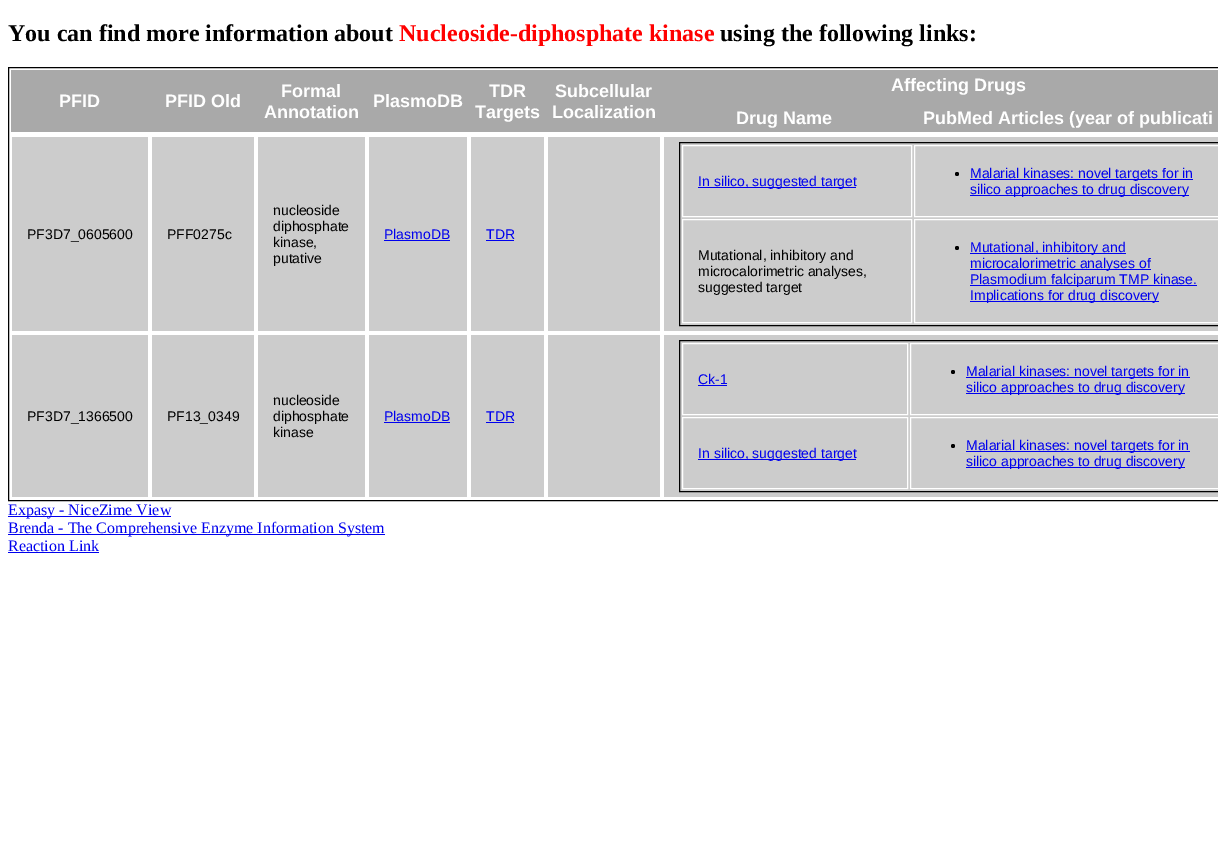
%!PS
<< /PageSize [1218 861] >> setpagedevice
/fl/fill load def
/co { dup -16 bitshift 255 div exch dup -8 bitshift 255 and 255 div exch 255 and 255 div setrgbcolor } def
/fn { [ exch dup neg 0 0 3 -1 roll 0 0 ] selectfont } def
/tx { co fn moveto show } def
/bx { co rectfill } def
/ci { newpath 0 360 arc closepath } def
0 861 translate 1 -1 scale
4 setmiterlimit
0 0 1218 861 16#FFFFFF bx
16#000000 co
8.5 67.5 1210 433 rectstroke
11 70 1207 62 16#A9A9A9 bx
12 137 136 194 16#CCCCCC bx
152 137 102 194 16#CCCCCC bx
258 137 107 194 16#CCCCCC bx
369 137 98 194 16#CCCCCC bx
384 240 66 1 16#0000EE bx
471 137 73 194 16#CCCCCC bx
486 240 28 1 16#0000EE bx
548 137 112 194 16#CCCCCC bx
664 137 554 194 16#CCCCCC bx
16#000000 co
679.5 142.5 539 183 rectstroke
16#FFFFFF co
682.5 145.5 229 71 rectstroke
698 187 158 1 16#0000EE bx
16#FFFFFF co
914.5 145.5 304 71 rectstroke
16#000000 co
957 174 2 ci fl
970 179 223 1 16#0000EE bx
970 195 219 1 16#0000EE bx
16#FFFFFF co
682.5 219.5 229 103 rectstroke
914.5 219.5 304 103 rectstroke
16#000000 co
957 248 2 ci fl
970 253 156 1 16#0000EE bx
970 269 181 1 16#0000EE bx
970 285 227 1 16#0000EE bx
970 301 189 1 16#0000EE bx
12 335 136 162 16#CCCCCC bx
152 335 102 162 16#CCCCCC bx
258 335 107 162 16#CCCCCC bx
369 335 98 162 16#CCCCCC bx
384 422 66 1 16#0000EE bx
471 335 73 162 16#CCCCCC bx
486 422 28 1 16#0000EE bx
548 335 112 162 16#CCCCCC bx
664 335 554 162 16#CCCCCC bx
16#000000 co
679.5 340.5 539 151 rectstroke
16#FFFFFF co
682.5 343.5 225 71 rectstroke
698 385 29 1 16#0000EE bx
16#FFFFFF co
910.5 343.5 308 71 rectstroke
16#000000 co
953 372 2 ci fl
966 377 224 1 16#0000EE bx
966 393 219 1 16#0000EE bx
16#FFFFFF co
682.5 417.5 225 71 rectstroke
698 459 158 1 16#0000EE bx
16#FFFFFF co
910.5 417.5 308 71 rectstroke
16#000000 co
953 446 2 ci fl
966 451 224 1 16#0000EE bx
966 467 219 1 16#0000EE bx
8 516 163 1 16#0000EE bx
8 534 377 1 16#0000EE bx
8 552 91 1 16#0000EE bx
(You can find more information about) 8 41 /LiberationSerif-Bold 24 16#000000 tx
(Nucleoside-diphosphate kinase) 399 41 /LiberationSerif-Bold 24 16#FF0000 tx
(using the following links:) 720 41 /LiberationSerif-Bold 24 16#000000 tx
(PFID) 59 107 /LiberationSans-Bold 18 16#FFFFFF tx
(PFID Old) 165 107 /LiberationSans-Bold 18 16#FFFFFF tx
(Formal) 281 97 /LiberationSans-Bold 18 16#FFFFFF tx
(Annotation) 264 118 /LiberationSans-Bold 18 16#FFFFFF tx
(PlasmoDB) 373 107 /LiberationSans-Bold 18 16#FFFFFF tx
(TDR) 489 97 /LiberationSans-Bold 18 16#FFFFFF tx
(Targets) 475 118 /LiberationSans-Bold 18 16#FFFFFF tx
(Subcellular) 555 97 /LiberationSans-Bold 18 16#FFFFFF tx
(Localization) 552 118 /LiberationSans-Bold 18 16#FFFFFF tx
(Affecting Drugs) 891 91 /LiberationSans-Bold 18 16#FFFFFF tx
(Drug Name) 736 124 /LiberationSans-Bold 18 16#FFFFFF tx
(PubMed Articles \(year of publicati) 923 124 /LiberationSans-Bold 18 16#FFFFFF tx
(PF3D7_0605600) 27 239 /LiberationSans-Regular 14 16#000000 tx
(PFF0275c) 167 239 /LiberationSans-Regular 14 16#000000 tx
(nucleoside) 273 215 /LiberationSans-Regular 14 16#000000 tx
(diphosphate) 273 231 /LiberationSans-Regular 14 16#000000 tx
(kinase,) 273 247 /LiberationSans-Regular 14 16#000000 tx
(putative) 273 263 /LiberationSans-Regular 14 16#000000 tx
(PlasmoDB) 384 239 /LiberationSans-Regular 14 16#0000EE tx
(TDR) 486 239 /LiberationSans-Regular 14 16#0000EE tx
(In silico, suggested target) 698 186 /LiberationSans-Regular 14 16#0000EE tx
(Malarial kinases: novel targets for in) 970 178 /LiberationSans-Regular 14 16#0000EE tx
(silico approaches to drug discovery) 970 194 /LiberationSans-Regular 14 16#0000EE tx
(Mutational, inhibitory and) 698 260 /LiberationSans-Regular 14 16#000000 tx
(microcalorimetric analyses,) 698 276 /LiberationSans-Regular 14 16#000000 tx
(suggested target) 698 292 /LiberationSans-Regular 14 16#000000 tx
(Mutational, inhibitory and) 970 252 /LiberationSans-Regular 14 16#0000EE tx
(microcalorimetric analyses of) 970 268 /LiberationSans-Regular 14 16#0000EE tx
(Plasmodium falciparum TMP kinase.) 970 284 /LiberationSans-Regular 14 16#0000EE tx
(Implications for drug discovery) 970 300 /LiberationSans-Regular 14 16#0000EE tx
(PF3D7_1366500) 27 421 /LiberationSans-Regular 14 16#000000 tx
(PF13_0349) 167 421 /LiberationSans-Regular 14 16#000000 tx
(nucleoside) 273 405 /LiberationSans-Regular 14 16#000000 tx
(diphosphate) 273 421 /LiberationSans-Regular 14 16#000000 tx
(kinase) 273 437 /LiberationSans-Regular 14 16#000000 tx
(PlasmoDB) 384 421 /LiberationSans-Regular 14 16#0000EE tx
(TDR) 486 421 /LiberationSans-Regular 14 16#0000EE tx
(Ck-1) 698 384 /LiberationSans-Regular 14 16#0000EE tx
(Malarial kinases: novel targets for in) 966 376 /LiberationSans-Regular 14 16#0000EE tx
(silico approaches to drug discovery) 966 392 /LiberationSans-Regular 14 16#0000EE tx
(In silico, suggested target) 698 458 /LiberationSans-Regular 14 16#0000EE tx
(Malarial kinases: novel targets for in) 966 450 /LiberationSans-Regular 14 16#0000EE tx
(silico approaches to drug discovery) 966 466 /LiberationSans-Regular 14 16#0000EE tx
(Expasy - NiceZime View) 8 515 /LiberationSerif-Regular 16 16#0000EE tx
(Brenda - The Comprehensive Enzyme Information System) 8 533 /LiberationSerif-Regular 16 16#0000EE tx
(Reaction Link) 8 551 /LiberationSerif-Regular 16 16#0000EE tx
showpage
